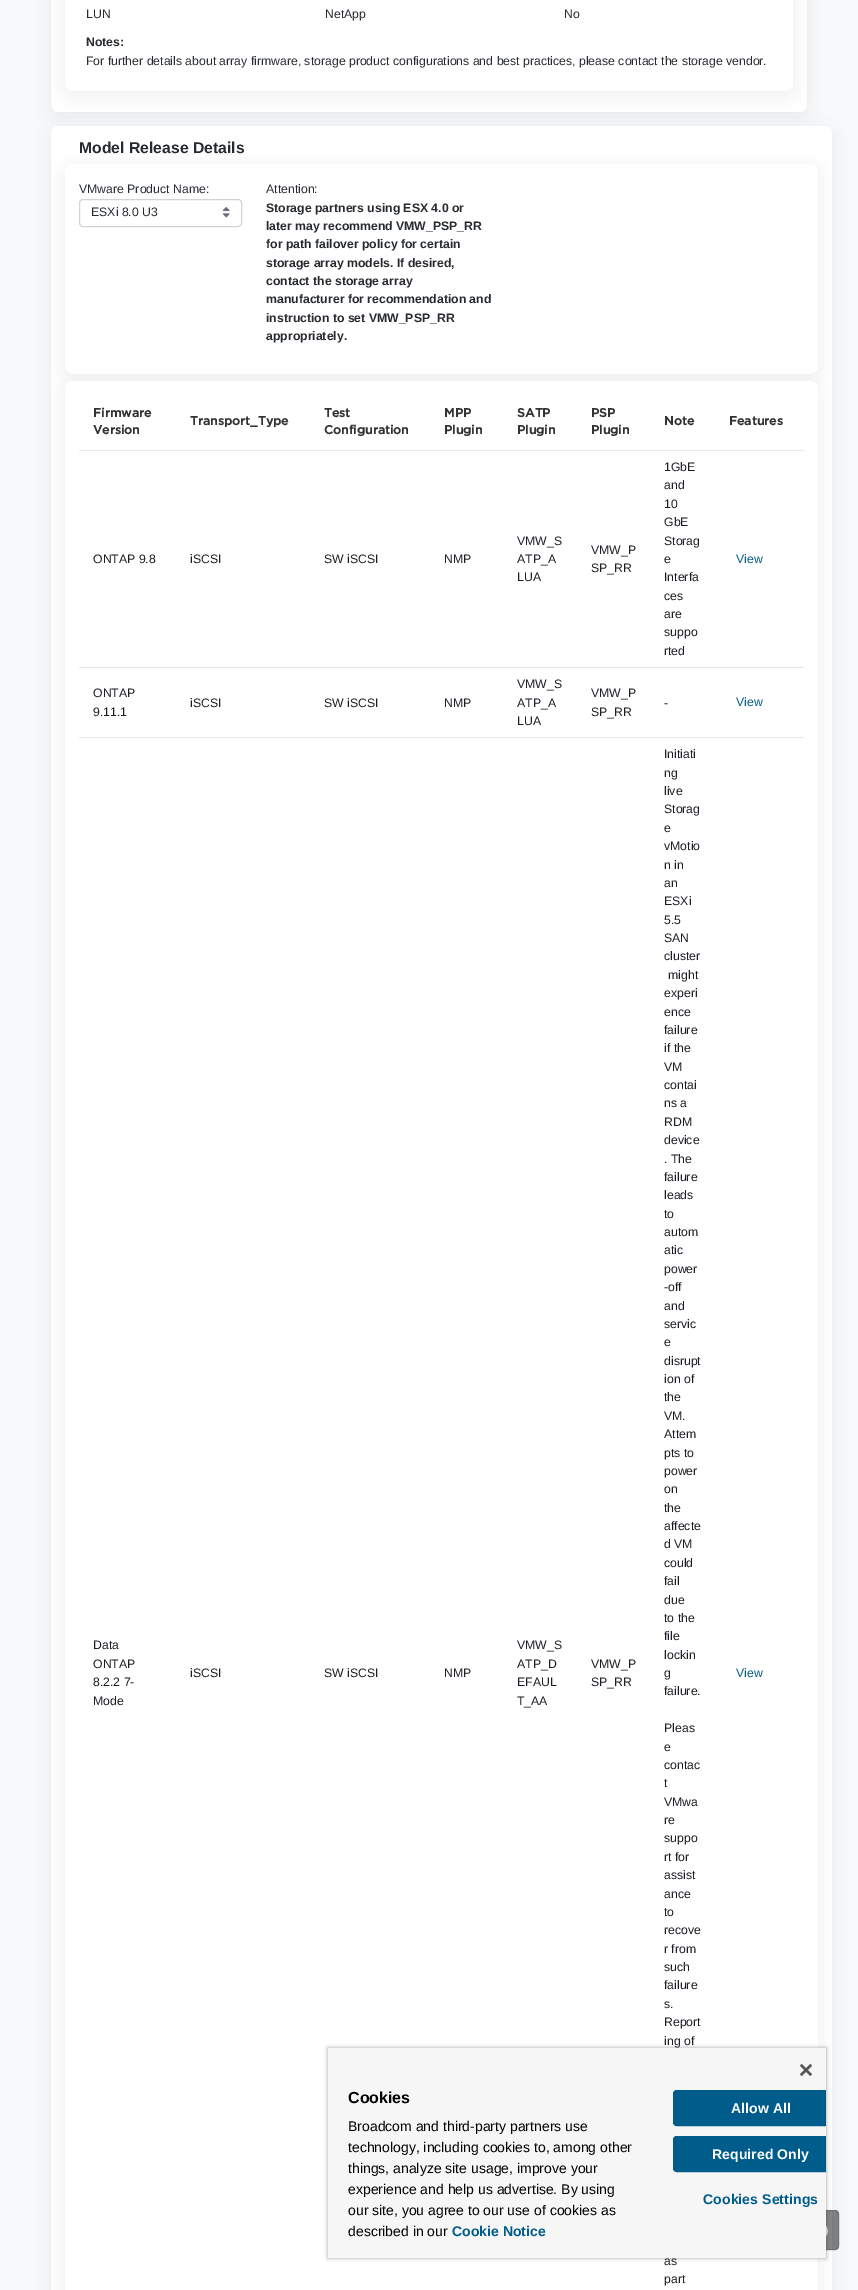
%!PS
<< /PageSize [858 2290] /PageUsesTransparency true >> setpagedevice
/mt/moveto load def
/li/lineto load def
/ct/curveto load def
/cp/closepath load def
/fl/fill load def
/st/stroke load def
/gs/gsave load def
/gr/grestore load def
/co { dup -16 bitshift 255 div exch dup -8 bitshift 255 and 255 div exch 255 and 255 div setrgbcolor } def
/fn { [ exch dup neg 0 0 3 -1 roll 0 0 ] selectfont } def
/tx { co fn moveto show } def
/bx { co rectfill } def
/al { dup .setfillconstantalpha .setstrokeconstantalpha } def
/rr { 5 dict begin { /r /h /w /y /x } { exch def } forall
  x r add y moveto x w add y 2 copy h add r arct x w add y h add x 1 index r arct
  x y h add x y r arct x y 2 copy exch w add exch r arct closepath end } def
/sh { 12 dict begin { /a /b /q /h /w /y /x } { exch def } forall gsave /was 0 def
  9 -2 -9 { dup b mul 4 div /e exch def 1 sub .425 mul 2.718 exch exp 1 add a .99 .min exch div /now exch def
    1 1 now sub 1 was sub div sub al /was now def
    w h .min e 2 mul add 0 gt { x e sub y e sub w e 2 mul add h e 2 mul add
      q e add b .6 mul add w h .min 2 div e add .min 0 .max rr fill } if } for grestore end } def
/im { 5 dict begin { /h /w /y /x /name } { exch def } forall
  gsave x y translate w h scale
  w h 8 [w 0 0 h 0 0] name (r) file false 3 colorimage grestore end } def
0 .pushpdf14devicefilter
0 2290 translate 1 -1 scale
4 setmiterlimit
0 0 858 2290 16#F8F9FA bx
16#333840 co
51 -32 756 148 8 8 .08 sh
16#FFFFFF co
51 -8 756 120 8 rr fl
16#333840 co
65 -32 728 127 8 8 .08 sh
16#FFFFFF co
65 -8 728 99 8 rr fl
16#333840 co
51 130 781 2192 8 8 .08 sh
16#FFFFFF co
51 126 781 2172 8 rr fl
16#333840 co
65 168 753 210 8 8 .08 sh
16#FFFFFF co
65 164 753 210 8 rr fl
(media/1.raw) 222 207 8 11 im
16#CED4DA co
79.5 199.5 162 27 3.5 rr st
16#333840 co
65 385 753 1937 8 8 .08 sh
16#FFFFFF co
65 381 753 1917 8 rr fl
79 450 725 1 16#E7E7ED bx
79 667 725 1 16#E7E7ED bx
79 737 725 1 16#E7E7ED bx
0.48 al
16#000000 co
772 2210 67 40 4 rr fl
0.8 al
16#6A7178 co
772.5 2210.5 66 39 3.5 rr st
1 al
(media/2.raw) 826 2226 2 10 im
16#000000 co
328 2048 498 210 0 2 .35 sh
328 2048 498 210 16#F6F6F6 bx
(media/3.raw) 800 2064 12 12 im
16#005C8A co
677 2090 mt 826 2090 li 826 2126 li 677 2126 li 675 2126 673 2124 673 2122 ct 673 2094 li 673 2092 675 2090 677 2090 ct cp fl
gs
328 2048 498 210 rectclip
673.5 2090.5 174 35 3.5 rr st
gr
677 2136 mt 826 2136 li 826 2172 li 677 2172 li 675 2172 673 2170 673 2168 ct 673 2140 li 673 2138 675 2136 677 2136 ct cp fl
gs
328 2048 498 210 rectclip
673.5 2136.5 174 35 3.5 rr st
gr
(LUN) 86 18 /LiberationSans-Regular 12.25 16#272B30 tx
(NetApp) 325 18 /LiberationSans-Regular 12.25 16#272B30 tx
(No) 564 18 /LiberationSans-Regular 12.25 16#272B30 tx
(Notes:) 86 46 /LiberationSans-Bold 12.25 16#272B30 tx
(For further details about array firmware, storage product configurations and best practices, please contact the storage vendor.) 86 65 /LiberationSans-Regular 12.25 16#272B30 tx
(Model Release Details) 79 153 /LiberationSans-Bold 15.75 16#272B30 tx
(VMware Product Name:) 79 193 /LiberationSans-Regular 12.25 16#272B30 tx
(ESXi 8.0 U3) 91 216 /LiberationSans-Regular 12.25 16#272B30 tx
(Attention:) 266 193 /LiberationSans-Regular 12.25 16#272B30 tx
(Storage partners using ESX 4.0 or) 266 212 /LiberationSans-Bold 12.25 16#272B30 tx
(later may recommend VMW_PSP_RR) 266 230 /LiberationSans-Bold 12.25 16#272B30 tx
(for path failover policy for certain) 266 248 /LiberationSans-Bold 12.25 16#272B30 tx
(storage array models. If desired,) 266 267 /LiberationSans-Bold 12.25 16#272B30 tx
(contact the storage array) 266 285 /LiberationSans-Bold 12.25 16#272B30 tx
(manufacturer for recommendation and) 266 303 /LiberationSans-Bold 12.25 16#272B30 tx
(instruction to set VMW_PSP_RR) 266 322 /LiberationSans-Bold 12.25 16#272B30 tx
(appropriately.) 266 340 /LiberationSans-Bold 12.25 16#272B30 tx
(Firmware) 93 417 /Gotham-Bold 12.25 16#333333 tx
(Version) 93 434 /Gotham-Bold 12.25 16#333333 tx
(Transport_Type) 190 425 /Gotham-Bold 12.25 16#333333 tx
(Test) 324 417 /Gotham-Bold 12.25 16#333333 tx
(Configuration) 324 434 /Gotham-Bold 12.25 16#333333 tx
(MPP) 444 417 /Gotham-Bold 12.25 16#333333 tx
(Plugin) 444 434 /Gotham-Bold 12.25 16#333333 tx
(SATP) 517 417 /Gotham-Bold 12.25 16#333333 tx
(Plugin) 517 434 /Gotham-Bold 12.25 16#333333 tx
(PSP) 591 417 /Gotham-Bold 12.25 16#333333 tx
(Plugin) 591 434 /Gotham-Bold 12.25 16#333333 tx
(Note) 664 425 /Gotham-Bold 12.25 16#333333 tx
(Features) 729 425 /Gotham-Bold 12.25 16#333333 tx
(ONTAP 9.8) 93 563 /LiberationSans-Regular 12.25 16#1C1C24 tx
(iSCSI) 190 563 /LiberationSans-Regular 12.25 16#1C1C24 tx
(SW iSCSI) 324 563 /LiberationSans-Regular 12.25 16#1C1C24 tx
(NMP) 444 563 /LiberationSans-Regular 12.25 16#1C1C24 tx
(VMW_S) 517 545 /LiberationSans-Regular 12.25 16#1C1C24 tx
(ATP_A) 517 563 /LiberationSans-Regular 12.25 16#1C1C24 tx
(LUA) 517 581 /LiberationSans-Regular 12.25 16#1C1C24 tx
(VMW_P) 591 554 /LiberationSans-Regular 12.25 16#1C1C24 tx
(SP_RR) 591 572 /LiberationSans-Regular 12.25 16#1C1C24 tx
(1GbE) 664 471 /LiberationSans-Regular 12.25 16#1C1C24 tx
(and) 664 489 /LiberationSans-Regular 12.25 16#1C1C24 tx
(10) 664 508 /LiberationSans-Regular 12.25 16#1C1C24 tx
(GbE) 664 526 /LiberationSans-Regular 12.25 16#1C1C24 tx
(Storag) 664 545 /LiberationSans-Regular 12.25 16#1C1C24 tx
(e) 664 563 /LiberationSans-Regular 12.25 16#1C1C24 tx
(Interfa) 664 581 /LiberationSans-Regular 12.25 16#1C1C24 tx
(ces) 664 600 /LiberationSans-Regular 12.25 16#1C1C24 tx
(are) 664 618 /LiberationSans-Regular 12.25 16#1C1C24 tx
(suppo) 664 636 /LiberationSans-Regular 12.25 16#1C1C24 tx
(rted) 664 655 /LiberationSans-Regular 12.25 16#1C1C24 tx
(View) 736 563 /LiberationSans-Regular 12.25 16#005C8A tx
(ONTAP) 93 697 /LiberationSans-Regular 12.25 16#1C1C24 tx
(9.11.1) 93 716 /LiberationSans-Regular 12.25 16#1C1C24 tx
(iSCSI) 190 707 /LiberationSans-Regular 12.25 16#1C1C24 tx
(SW iSCSI) 324 707 /LiberationSans-Regular 12.25 16#1C1C24 tx
(NMP) 444 707 /LiberationSans-Regular 12.25 16#1C1C24 tx
(VMW_S) 517 688 /LiberationSans-Regular 12.25 16#1C1C24 tx
(ATP_A) 517 707 /LiberationSans-Regular 12.25 16#1C1C24 tx
(LUA) 517 725 /LiberationSans-Regular 12.25 16#1C1C24 tx
(VMW_P) 591 697 /LiberationSans-Regular 12.25 16#1C1C24 tx
(SP_RR) 591 716 /LiberationSans-Regular 12.25 16#1C1C24 tx
(-) 664 707 /LiberationSans-Regular 12.25 16#1C1C24 tx
(View) 736 706 /LiberationSans-Regular 12.25 16#005C8A tx
(Data) 93 1649 /LiberationSans-Regular 12.25 16#1C1C24 tx
(ONTAP) 93 1668 /LiberationSans-Regular 12.25 16#1C1C24 tx
(8.2.2 7-) 93 1686 /LiberationSans-Regular 12.25 16#1C1C24 tx
(Mode) 93 1705 /LiberationSans-Regular 12.25 16#1C1C24 tx
(iSCSI) 190 1677 /LiberationSans-Regular 12.25 16#1C1C24 tx
(SW iSCSI) 324 1677 /LiberationSans-Regular 12.25 16#1C1C24 tx
(NMP) 444 1677 /LiberationSans-Regular 12.25 16#1C1C24 tx
(VMW_S) 517 1649 /LiberationSans-Regular 12.25 16#1C1C24 tx
(ATP_D) 517 1668 /LiberationSans-Regular 12.25 16#1C1C24 tx
(EFAUL) 517 1686 /LiberationSans-Regular 12.25 16#1C1C24 tx
(T_AA) 517 1705 /LiberationSans-Regular 12.25 16#1C1C24 tx
(VMW_P) 591 1668 /LiberationSans-Regular 12.25 16#1C1C24 tx
(SP_RR) 591 1686 /LiberationSans-Regular 12.25 16#1C1C24 tx
(Initiati) 664 758 /LiberationSans-Regular 12.25 16#1C1C24 tx
(ng) 664 777 /LiberationSans-Regular 12.25 16#1C1C24 tx
(live) 664 795 /LiberationSans-Regular 12.25 16#1C1C24 tx
(Storag) 664 813 /LiberationSans-Regular 12.25 16#1C1C24 tx
(e) 664 832 /LiberationSans-Regular 12.25 16#1C1C24 tx
(vMotio) 664 850 /LiberationSans-Regular 12.25 16#1C1C24 tx
(n in) 664 869 /LiberationSans-Regular 12.25 16#1C1C24 tx
(an) 664 887 /LiberationSans-Regular 12.25 16#1C1C24 tx
(ESXi) 664 905 /LiberationSans-Regular 12.25 16#1C1C24 tx
(5.5) 664 924 /LiberationSans-Regular 12.25 16#1C1C24 tx
(SAN) 664 942 /LiberationSans-Regular 12.25 16#1C1C24 tx
(cluster) 664 960 /LiberationSans-Regular 12.25 16#1C1C24 tx
(might) 668 979 /LiberationSans-Regular 12.25 16#1C1C24 tx
(experi) 664 997 /LiberationSans-Regular 12.25 16#1C1C24 tx
(ence) 664 1016 /LiberationSans-Regular 12.25 16#1C1C24 tx
(failure) 664 1034 /LiberationSans-Regular 12.25 16#1C1C24 tx
(if the) 664 1052 /LiberationSans-Regular 12.25 16#1C1C24 tx
(VM) 664 1071 /LiberationSans-Regular 12.25 16#1C1C24 tx
(contai) 664 1089 /LiberationSans-Regular 12.25 16#1C1C24 tx
(ns a) 664 1107 /LiberationSans-Regular 12.25 16#1C1C24 tx
(RDM) 664 1126 /LiberationSans-Regular 12.25 16#1C1C24 tx
(device) 664 1144 /LiberationSans-Regular 12.25 16#1C1C24 tx
(. The) 664 1163 /LiberationSans-Regular 12.25 16#1C1C24 tx
(failure) 664 1181 /LiberationSans-Regular 12.25 16#1C1C24 tx
(leads) 664 1199 /LiberationSans-Regular 12.25 16#1C1C24 tx
(to) 664 1218 /LiberationSans-Regular 12.25 16#1C1C24 tx
(autom) 664 1236 /LiberationSans-Regular 12.25 16#1C1C24 tx
(atic) 664 1254 /LiberationSans-Regular 12.25 16#1C1C24 tx
(power) 664 1273 /LiberationSans-Regular 12.25 16#1C1C24 tx
(-off) 664 1291 /LiberationSans-Regular 12.25 16#1C1C24 tx
(and) 664 1310 /LiberationSans-Regular 12.25 16#1C1C24 tx
(servic) 664 1328 /LiberationSans-Regular 12.25 16#1C1C24 tx
(e) 664 1346 /LiberationSans-Regular 12.25 16#1C1C24 tx
(disrupt) 664 1365 /LiberationSans-Regular 12.25 16#1C1C24 tx
(ion of) 664 1383 /LiberationSans-Regular 12.25 16#1C1C24 tx
(the) 664 1401 /LiberationSans-Regular 12.25 16#1C1C24 tx
(VM.) 664 1420 /LiberationSans-Regular 12.25 16#1C1C24 tx
(Attem) 664 1438 /LiberationSans-Regular 12.25 16#1C1C24 tx
(pts to) 664 1457 /LiberationSans-Regular 12.25 16#1C1C24 tx
(power) 664 1475 /LiberationSans-Regular 12.25 16#1C1C24 tx
(on) 664 1493 /LiberationSans-Regular 12.25 16#1C1C24 tx
(the) 664 1512 /LiberationSans-Regular 12.25 16#1C1C24 tx
(affecte) 664 1530 /LiberationSans-Regular 12.25 16#1C1C24 tx
(d VM) 664 1548 /LiberationSans-Regular 12.25 16#1C1C24 tx
(could) 664 1567 /LiberationSans-Regular 12.25 16#1C1C24 tx
(fail) 664 1585 /LiberationSans-Regular 12.25 16#1C1C24 tx
(due) 664 1604 /LiberationSans-Regular 12.25 16#1C1C24 tx
(to the) 664 1622 /LiberationSans-Regular 12.25 16#1C1C24 tx
(file) 664 1640 /LiberationSans-Regular 12.25 16#1C1C24 tx
(lockin) 664 1659 /LiberationSans-Regular 12.25 16#1C1C24 tx
(g) 664 1677 /LiberationSans-Regular 12.25 16#1C1C24 tx
(failure.) 664 1695 /LiberationSans-Regular 12.25 16#1C1C24 tx
(Pleas) 664 1732 /LiberationSans-Regular 12.25 16#1C1C24 tx
(e) 664 1751 /LiberationSans-Regular 12.25 16#1C1C24 tx
(contac) 664 1769 /LiberationSans-Regular 12.25 16#1C1C24 tx
(t) 664 1787 /LiberationSans-Regular 12.25 16#1C1C24 tx
(VMwa) 664 1806 /LiberationSans-Regular 12.25 16#1C1C24 tx
(re) 664 1824 /LiberationSans-Regular 12.25 16#1C1C24 tx
(suppo) 664 1842 /LiberationSans-Regular 12.25 16#1C1C24 tx
(rt for) 664 1861 /LiberationSans-Regular 12.25 16#1C1C24 tx
(assist) 664 1879 /LiberationSans-Regular 12.25 16#1C1C24 tx
(ance) 664 1898 /LiberationSans-Regular 12.25 16#1C1C24 tx
(to) 664 1916 /LiberationSans-Regular 12.25 16#1C1C24 tx
(recove) 664 1934 /LiberationSans-Regular 12.25 16#1C1C24 tx
(r from) 664 1953 /LiberationSans-Regular 12.25 16#1C1C24 tx
(such) 664 1971 /LiberationSans-Regular 12.25 16#1C1C24 tx
(failure) 664 1989 /LiberationSans-Regular 12.25 16#1C1C24 tx
(s.) 664 2008 /LiberationSans-Regular 12.25 16#1C1C24 tx
(Report) 664 2026 /LiberationSans-Regular 12.25 16#1C1C24 tx
(ing of) 664 2045 /LiberationSans-Regular 12.25 16#1C1C24 tx
(as) 664 2265 /LiberationSans-Regular 12.25 16#1C1C24 tx
(part) 664 2283 /LiberationSans-Regular 12.25 16#1C1C24 tx
(View) 736 1677 /LiberationSans-Regular 12.25 16#005C8A tx
(Cookies) 348 2103 /LiberationSans-Bold 16 16#000000 tx
(Broadcom and third-party partners use) 348 2131 /LiberationSans-Regular 14 16#000000 tx
(technology, including cookies to, among other) 348 2152 /LiberationSans-Regular 14 16#000000 tx
(things, analyze site usage, improve your) 348 2173 /LiberationSans-Regular 14 16#000000 tx
(experience and help us advertise. By using) 348 2194 /LiberationSans-Regular 14 16#000000 tx
(our site, you agree to our use of cookies as) 348 2215 /LiberationSans-Regular 14 16#000000 tx
(described in our) 348 2236 /LiberationSans-Regular 14 16#000000 tx
(Cookie Notice) 452 2236 /LiberationSans-Bold 14 16#005C8A tx
16#FFFFFF co
731 2113 mt .1 0 (Allow All) ashow
712 2159 mt .1 0 (Required Only) ashow
16#005C8A co
703 2204 mt .1 0 (Cookies Settings) ashow
.poppdf14devicefilter showpage
